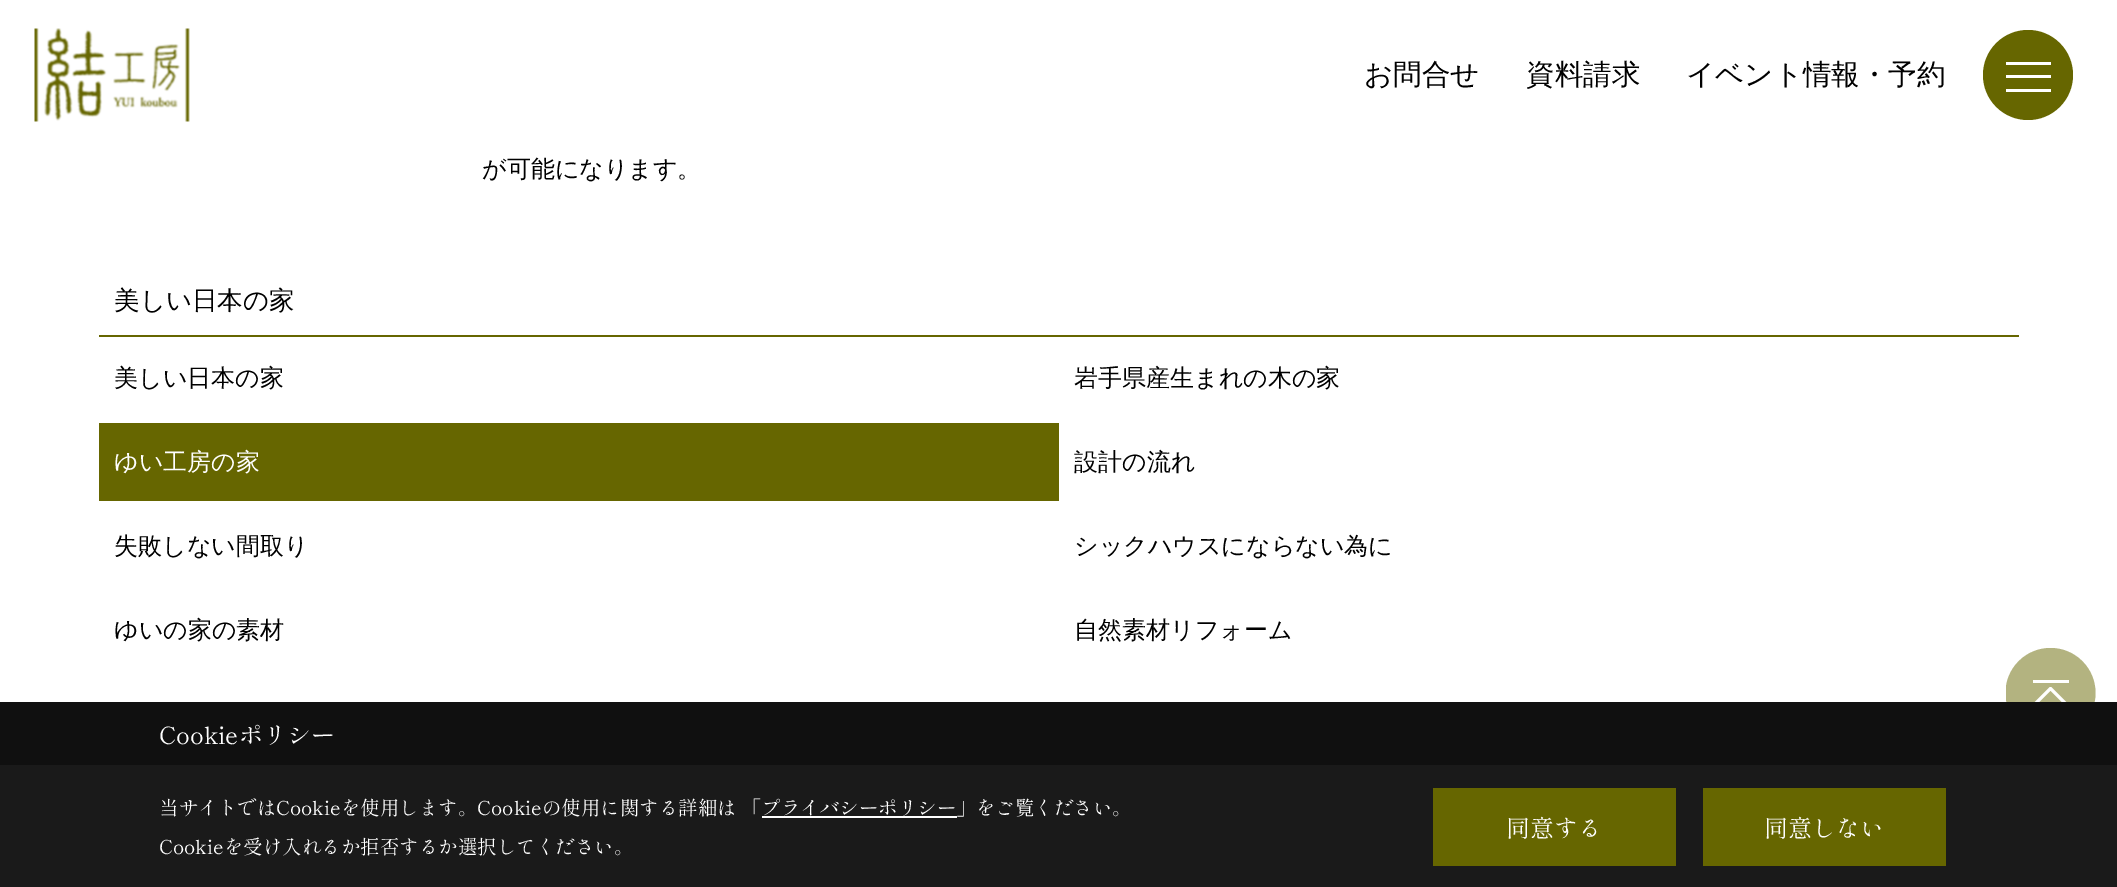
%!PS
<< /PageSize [2117 887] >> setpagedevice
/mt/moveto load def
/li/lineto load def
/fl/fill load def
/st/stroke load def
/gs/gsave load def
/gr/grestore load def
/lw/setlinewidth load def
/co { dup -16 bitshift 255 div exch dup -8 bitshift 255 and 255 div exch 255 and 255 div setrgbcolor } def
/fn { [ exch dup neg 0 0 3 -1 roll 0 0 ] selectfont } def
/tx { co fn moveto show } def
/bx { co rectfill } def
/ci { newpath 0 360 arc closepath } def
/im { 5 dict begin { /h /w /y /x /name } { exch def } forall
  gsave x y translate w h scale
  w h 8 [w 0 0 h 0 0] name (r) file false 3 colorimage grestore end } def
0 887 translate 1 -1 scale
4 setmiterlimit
0 0 2117 887 16#FFFFFF bx
(media/1.raw) 34 28 156 94 im
16#666600 co
2028 75 45 ci fl
2006 62 45 3 16#FFFFFF bx
2006 75 45 3 16#FFFFFF bx
2006 89 45 3 16#FFFFFF bx
99 335 1920 2 16#666600 bx
99 423 960 78 16#666600 bx
gs
2006 648 90 90 rectclip
16#B3B380 co
2050.5 693 45 ci fl
gr
2033 680 36 3 16#FFFFFF bx
3 lw
1 setlinecap
1 setlinejoin
2067 705 mt 2050.5 688.5 li 2034 705 li st
0 702 2117 63 16#101010 bx
0 765 2117 122 16#1A1A1A bx
762 816 195 2 16#FFFFFF bx
1433 788 243 78 16#666600 bx
1703 788 243 78 16#666600 bx
(お問合せ) 1364 84 /WenQuanYiZenHei-Medium 28.5 16#000000 tx
(資料請求) 1526 84 /WenQuanYiZenHei-Medium 28.5 16#000000 tx
(イベント情報・予約) 1686 84 /WenQuanYiZenHei-Medium 28.5 16#000000 tx
(が可能になります。) 482 177 /WenQuanYiZenHei-Medium 24 16#000000 tx
(美しい日本の家) 114 309 /WenQuanYiZenHei-Medium 25.5 16#000000 tx
(美しい日本の家) 114 386 /WenQuanYiZenHei-Medium 24 16#000000 tx
(岩手県産生まれの木の家) 1074 386 /WenQuanYiZenHei-Medium 24 16#000000 tx
(ゆい工房の家) 114 470 /WenQuanYiZenHei-Medium 24 16#FFFFFF tx
(設計の流れ) 1074 470 /WenQuanYiZenHei-Medium 24 16#000000 tx
(失敗しない間取り) 114 554 /WenQuanYiZenHei-Medium 24 16#000000 tx
(シックハウスにならない為に) 1074 554 /WenQuanYiZenHei-Medium 24 16#000000 tx
(ゆいの家の素材) 114 638 /WenQuanYiZenHei-Medium 24 16#000000 tx
(自然素材リフォーム) 1074 638 /WenQuanYiZenHei-Medium 24 16#000000 tx
(Cookieポリシー) 159 744 /ShipporiMincho-Regular 24 16#FFFFFF tx
(当サイトではCookieを使用します。Cookieの使用に関する詳細は 「プライバシーポリシー」をご覧ください。) 159 815 /ShipporiMincho-Regular 19.5 16#FFFFFF tx
(Cookieを受け入れるか拒否するか選択してください。) 159 854 /ShipporiMincho-Regular 19.5 16#FFFFFF tx
(同意する) 1506 837 /ShipporiMincho-Regular 24 16#FFFFFF tx
(同意しない) 1764 837 /ShipporiMincho-Regular 24 16#FFFFFF tx
showpage
